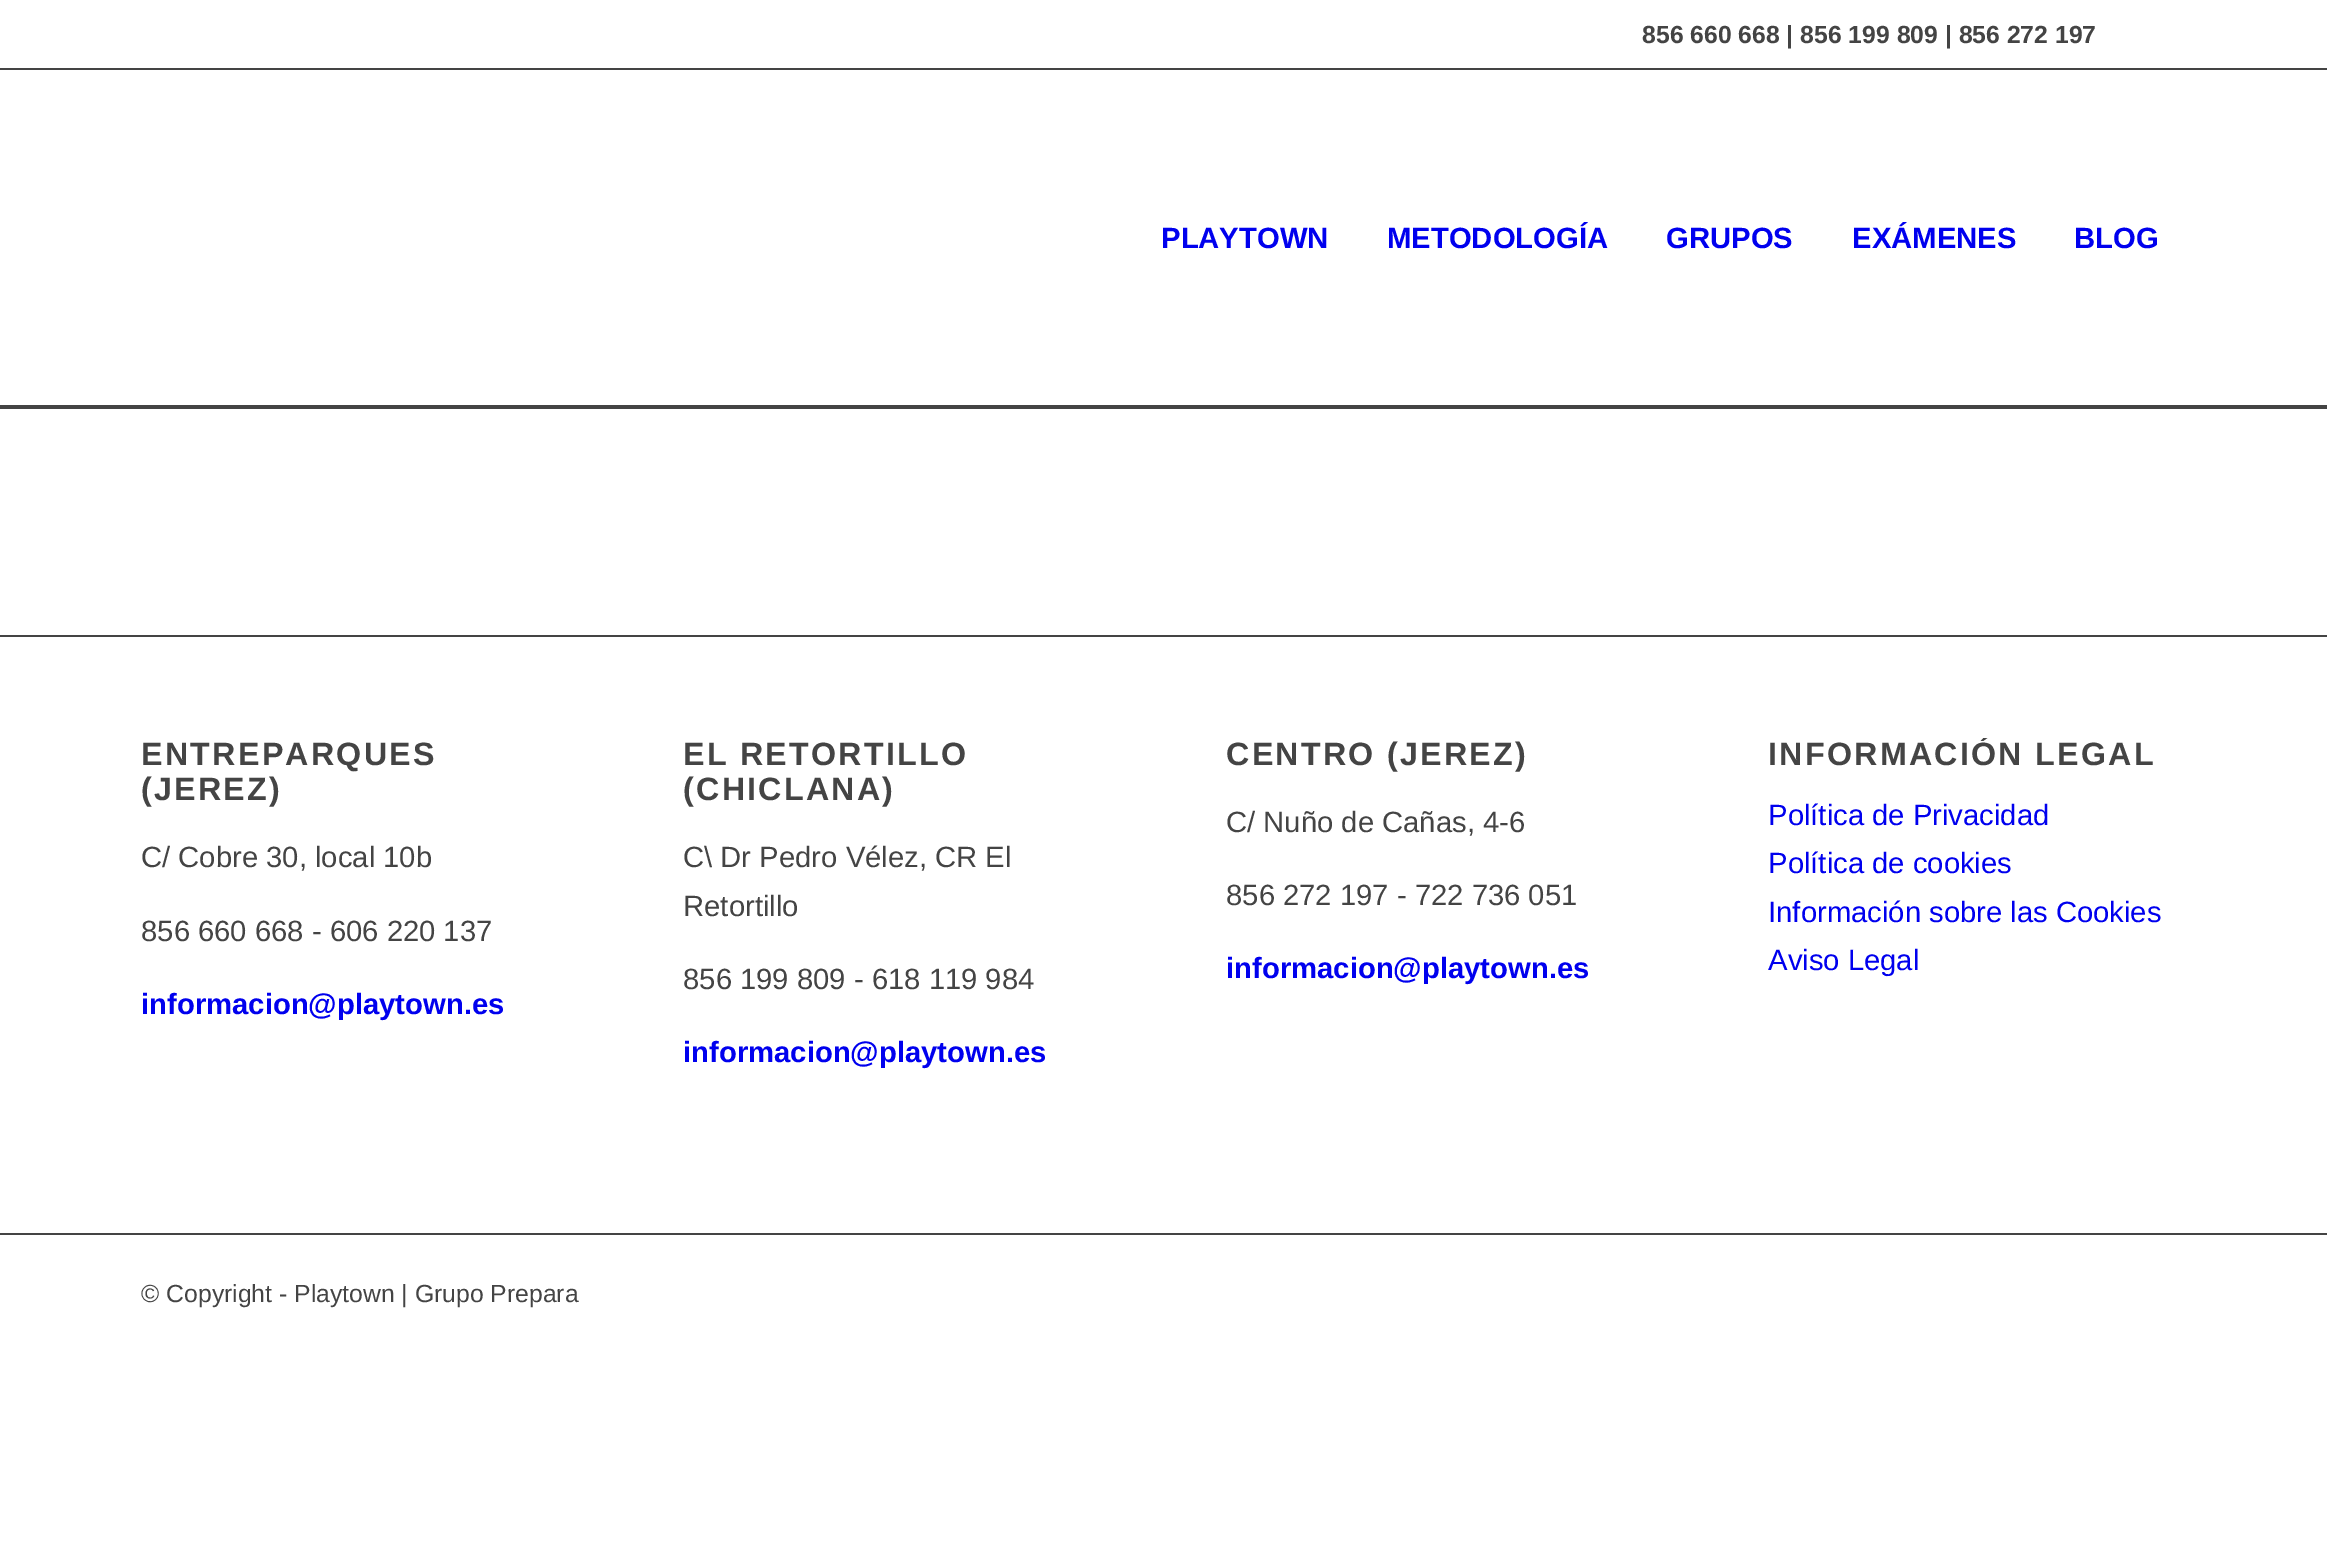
%!PS
<< /PageSize [2327 1554] >> setpagedevice
/mt/moveto load def
/gs/gsave load def
/gr/grestore load def
/co { dup -16 bitshift 255 div exch dup -8 bitshift 255 and 255 div exch 255 and 255 div setrgbcolor } def
/fn { [ exch dup neg 0 0 3 -1 roll 0 0 ] selectfont } def
/tx { co fn moveto show } def
/bx { co rectfill } def
0 1554 translate 1 -1 scale
4 setmiterlimit
0 0 2327 1554 16#FFFFFF bx
0 68 2327 2 16#444444 bx
0 405 2327 4 16#444444 bx
0 635 2327 2 16#444444 bx
0 1233 2327 2 16#444444 bx
(856 660 668 | 856 199 809 | 856 272 197) 1642 43 /LiberationSans-Bold 24.75 16#444444 tx
(PLAYTOWN) 1161 248 /LiberationSans-Bold 29.25 16#0000EE tx
(METODOLOGÍA) 1387 248 /LiberationSans-Bold 29.25 16#0000EE tx
(GRUPOS) 1666 248 /LiberationSans-Bold 29.25 16#0000EE tx
(EXÁMENES) 1852 248 /LiberationSans-Bold 29.25 16#0000EE tx
(BLOG) 2074 248 /LiberationSans-Bold 29.25 16#0000EE tx
/LiberationSans-Bold 32.25 fn
16#444444 co
141 765 mt 2.25 0 (ENTREPARQUES) ashow
141 800 mt 2.25 0 (\(JEREZ\)) ashow
(C/ Cobre 30, local 10b) 141 867 /LiberationSans-Regular 29.25 16#444444 tx
(856 660 668 - 606 220 137) 141 941 /LiberationSans-Regular 29.25 16#444444 tx
(informacion@playtown.es) 141 1014 /LiberationSans-Bold 29.25 16#0000EE tx
/LiberationSans-Bold 32.25 fn
16#444444 co
683 765 mt 2.25 0 (EL RETORTILLO) ashow
683 800 mt 2.25 0 (\(CHICLANA\)) ashow
(C\\ Dr Pedro Vélez, CR El) 683 867 /LiberationSans-Regular 29.25 16#444444 tx
(Retortillo) 683 916 /LiberationSans-Regular 29.25 16#444444 tx
(856 199 809 - 618 119 984) 683 989 /LiberationSans-Regular 29.25 16#444444 tx
(informacion@playtown.es) 683 1062 /LiberationSans-Bold 29.25 16#0000EE tx
/LiberationSans-Bold 32.25 fn
16#444444 co
1226 765 mt 2.25 0 (CENTRO \(JEREZ\)) ashow
(C/ Nuño de Cañas, 4-6) 1226 832 /LiberationSans-Regular 29.25 16#444444 tx
(856 272 197 - 722 736 051) 1226 905 /LiberationSans-Regular 29.25 16#444444 tx
(informacion@playtown.es) 1226 978 /LiberationSans-Bold 29.25 16#0000EE tx
gs
1769 738 418 248 rectclip
/LiberationSans-Bold 32.25 fn
16#444444 co
1768 765 mt 2.25 0 (INFORMACIÓN LEGAL) ashow
gr
(Política de Privacidad) 1768 825 /LiberationSans-Regular 29.25 16#0000EE tx
(Política de cookies) 1768 873 /LiberationSans-Regular 29.25 16#0000EE tx
(Información sobre las Cookies) 1768 922 /LiberationSans-Regular 29.25 16#0000EE tx
(Aviso Legal) 1768 970 /LiberationSans-Regular 29.25 16#0000EE tx
(© Copyright - Playtown | Grupo Prepara) 141 1302 /LiberationSans-Regular 24.75 16#444444 tx
showpage
